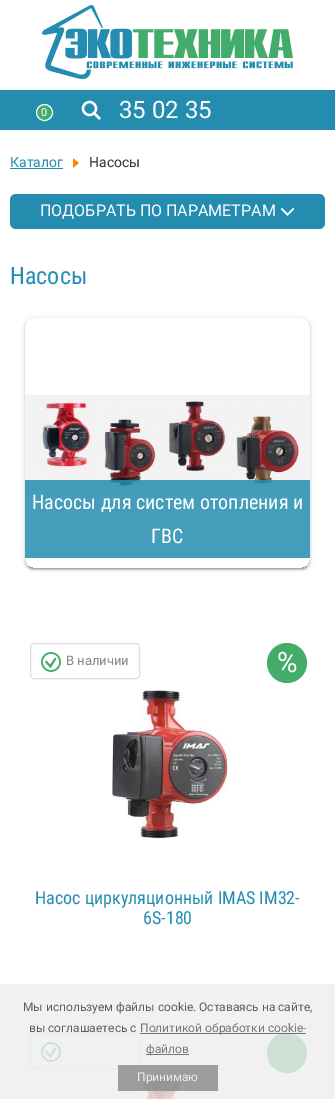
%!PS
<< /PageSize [335 1099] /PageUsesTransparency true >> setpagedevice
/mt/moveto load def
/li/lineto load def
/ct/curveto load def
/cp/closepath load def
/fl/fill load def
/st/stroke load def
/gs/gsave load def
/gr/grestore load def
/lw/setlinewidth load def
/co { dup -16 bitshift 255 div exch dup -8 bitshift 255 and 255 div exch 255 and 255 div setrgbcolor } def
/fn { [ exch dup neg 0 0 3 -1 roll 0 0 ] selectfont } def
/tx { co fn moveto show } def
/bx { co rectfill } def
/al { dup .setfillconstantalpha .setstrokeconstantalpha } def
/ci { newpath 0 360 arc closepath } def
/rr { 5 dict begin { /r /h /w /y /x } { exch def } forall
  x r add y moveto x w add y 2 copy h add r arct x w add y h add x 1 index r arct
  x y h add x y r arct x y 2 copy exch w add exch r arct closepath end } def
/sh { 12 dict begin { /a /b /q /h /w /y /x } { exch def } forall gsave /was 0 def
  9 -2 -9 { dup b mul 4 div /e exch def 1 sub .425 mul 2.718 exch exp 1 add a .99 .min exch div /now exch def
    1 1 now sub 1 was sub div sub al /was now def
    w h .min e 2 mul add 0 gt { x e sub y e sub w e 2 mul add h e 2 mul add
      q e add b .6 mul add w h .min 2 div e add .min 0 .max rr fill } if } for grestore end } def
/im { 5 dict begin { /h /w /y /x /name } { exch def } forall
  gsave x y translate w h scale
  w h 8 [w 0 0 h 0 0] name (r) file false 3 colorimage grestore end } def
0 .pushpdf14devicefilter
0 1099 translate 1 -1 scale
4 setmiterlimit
0 0 335 1099 16#FFFFFF bx
(media/1.raw) 42 5 251 74 im
0 90 335 40 16#238CAF bx
16#43AC6A co
44.5 112.5 8 ci gs fl gr
16#FFFFFF co
st
2.3 lw
89.5 108.5 6.5 ci st
94 113 mt 100 119 li st
10 168 53 1 16#238CAF bx
(media/2.raw) 73 158 6 10 im
10 194 315 35 6 rr fl
(media/3.raw) 280 208 15 8 im
gs
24 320 mt 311 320 li 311 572 li 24 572 li cp 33 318 mt 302 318 li 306.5 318 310 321.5 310 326 ct 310 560 li 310 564.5 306.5 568 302 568 ct 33 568 li 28.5 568 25 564.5 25 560 ct 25 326 li 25 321.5 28.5 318 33 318 ct cp eoclip newpath
16#000000 co
27 323 281 246 6 .5 .2 sh
gr
gs
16 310 mt 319 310 li 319 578 li 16 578 li cp 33 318 mt 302 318 li 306.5 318 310 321.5 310 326 ct 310 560 li 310 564.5 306.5 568 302 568 ct 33 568 li 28.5 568 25 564.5 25 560 ct 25 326 li 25 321.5 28.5 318 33 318 ct cp eoclip newpath
16#000000 co
25 319 285 250 8 2.5 .12 sh
gr
gs
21 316 mt 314 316 li 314 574 li 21 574 li cp 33 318 mt 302 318 li 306.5 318 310 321.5 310 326 ct 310 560 li 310 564.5 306.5 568 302 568 ct 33 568 li 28.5 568 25 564.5 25 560 ct 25 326 li 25 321.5 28.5 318 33 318 ct cp eoclip newpath
16#000000 co
25 320 285 250 8 1 .14 sh
gr
(media/4.raw) 25 395 285 96 im
0.85 al
25 480 285 78 16#238CAF bx
1 al
16#DDDDDD co
1 lw
30.5 643.5 109 35 3.5 rr st
(media/5.raw) 41 652 20 20 im
16#43AC6A co
287 663 20 ci fl
(media/6.raw) 112 690 116 149 im
16#DDDDDD co
30.5 1033.5 109 35 3.5 rr st
(media/5.raw) 41 1042 20 20 im
16#43AC6A co
287 1053 20 ci fl
(media/7.raw) 141 1080 41 19 im
0.8 al
0 984 335 115 16#EEEEEE bx
140 1033 166 1 16#555555 bx
1 al
146 1054 43 1 16#777777 bx
0.8 al
118 1065 100 26 16#888888 bx
1 al
(0) 41 116 /Roboto-Regular 11 16#FFFFFF tx
(35 02 35) 119 118 /Roboto-Regular 24 16#FFFFFF tx
(Каталог) 10 167 /Roboto-Regular 14 16#238CAF tx
(Насосы) 89 167 /Roboto-Regular 14 16#333333 tx
(ПОДОБРАТЬ ПО ПАРАМЕТРАМ) 40 216 /Roboto-Regular 16 16#FFFFFF tx
(Насосы) 10 284 /RobotoCondensed-Regular 24 16#238CAF tx
(Насосы для систем отопления и) 32 509 /RobotoCondensed-Regular 20 16#FFFFFF tx
(ГВС) 151 543 /RobotoCondensed-Regular 20 16#FFFFFF tx
(В наличии) 66 665 /Roboto-Regular 13 16#888888 tx
(%) 277 672 /Roboto-Regular 28 16#FFFFFF tx
(Насос циркуляционный IMAS IM32-) 35 904 /RobotoCondensed-Regular 18 16#238CAF tx
(6S-180) 143 924 /RobotoCondensed-Regular 18 16#238CAF tx
(Мы используем файлы cookie. Оставаясь на сайте,) 23 1011 /Roboto-Regular 12 16#5C5C5C tx
(вы соглашаетесь с) 29 1032 /Roboto-Regular 12 16#5C5C5C tx
(Политикой обработки cookie-) 140 1032 /Roboto-Regular 12 16#777777 tx
(файлов) 146 1053 /Roboto-Regular 12 16#777777 tx
(Принимаю) 137 1081 /Roboto-Regular 12 16#EBEBEB tx
.poppdf14devicefilter showpage
